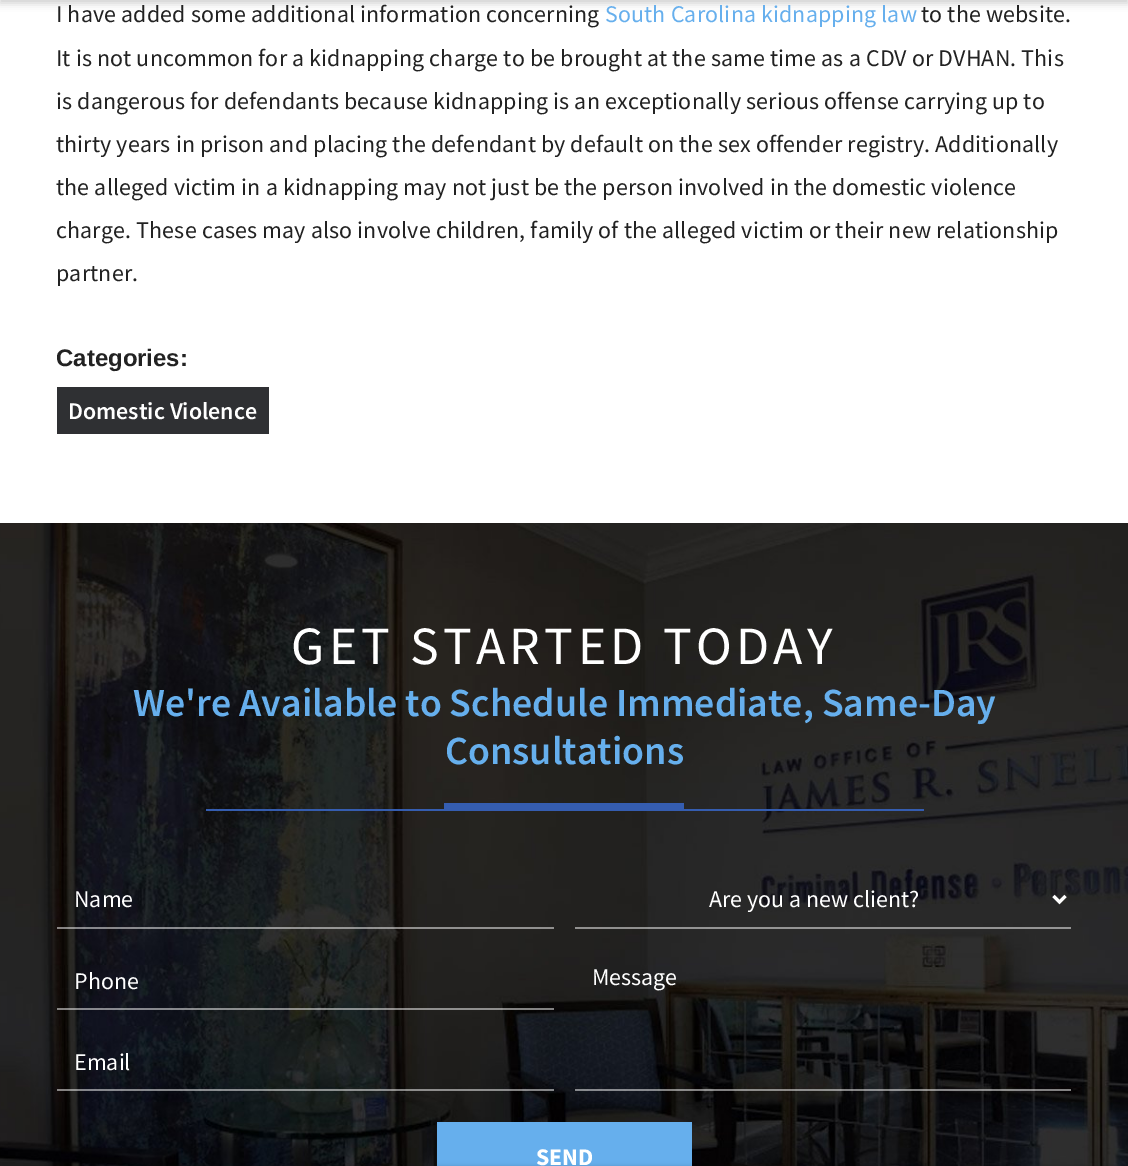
%!PS
<< /PageSize [1128 1166] /PageUsesTransparency true >> setpagedevice
/mt/moveto load def
/li/lineto load def
/st/stroke load def
/lw/setlinewidth load def
/co { dup -16 bitshift 255 div exch dup -8 bitshift 255 and 255 div exch 255 and 255 div setrgbcolor } def
/fn { [ exch dup neg 0 0 3 -1 roll 0 0 ] selectfont } def
/tx { co fn moveto show } def
/bx { co rectfill } def
/al { dup .setfillconstantalpha .setstrokeconstantalpha } def
/rr { 5 dict begin { /r /h /w /y /x } { exch def } forall
  x r add y moveto x w add y 2 copy h add r arct x w add y h add x 1 index r arct
  x y h add x y r arct x y 2 copy exch w add exch r arct closepath end } def
/sh { 12 dict begin { /a /b /q /h /w /y /x } { exch def } forall gsave /was 0 def
  9 -2 -9 { dup b mul 4 div /e exch def 1 sub .425 mul 2.718 exch exp 1 add a .99 .min exch div /now exch def
    1 1 now sub 1 was sub div sub al /was now def
    w h .min e 2 mul add 0 gt { x e sub y e sub w e 2 mul add h e 2 mul add
      q e add b .6 mul add w h .min 2 div e add .min 0 .max rr fill } if } for grestore end } def
/im { 5 dict begin { /h /w /y /x /name } { exch def } forall
  gsave x y translate w h scale
  w h 8 [w 0 0 h 0 0] name (r) file false 3 colorimage grestore end } def
0 .pushpdf14devicefilter
0 1166 translate 1 -1 scale
4 setmiterlimit
0 0 1128 1166 16#FFFFFF bx
16#000000 co
0 -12 1128 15 0 4 .2 sh
(media/1.raw) 0 523 1128 643 im
437 1122 255 44 16#66AFED bx
16#000000 co
0 1166 1128 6 0 2 .15 sh
57 387 212 47 16#2F3033 bx
444 803 240 6 16#355DB0 bx
206 809 718 2 16#355DB0 bx
0.5 al
57 927 497 2 16#FFFFFF bx
57 1008 497 2 16#FFFFFF bx
57 1089 497 2 16#FFFFFF bx
575 927 496 2 16#FFFFFF bx
1 al
3 lw
1053.5 896 mt 1059.5 902 li 1065.5 896 li st
0.5 al
575 1089 496 2 16#FFFFFF bx
/SourceSansPro-Regular 23.95 fn
1 al
16#222222 co
56 22 mt .15 0 (I have added some additional information concerning) ashow
16#66AFED co
605 22 mt .15 0 (South Carolina kidnapping law) ashow
16#222222 co
921 22 mt .15 0 (to the website.) ashow
56 66 mt .15 0 (It is not uncommon for a kidnapping charge to be brought at the same time as a CDV or DVHAN. This) ashow
56 109 mt .15 0 (is dangerous for defendants because kidnapping is an exceptionally serious offense carrying up to) ashow
56 152 mt .15 0 (thirty years in prison and placing the defendant by default on the sex offender registry. Additionally) ashow
56 195 mt .15 0 (the alleged victim in a kidnapping may not just be the person involved in the domestic violence) ashow
56 238 mt .15 0 (charge. These cases may also involve children, family of the alleged victim or their new relationship) ashow
56 281 mt .15 0 (partner.) ashow
(Categories:) 56 366 /LiberationSans-Bold 23.95 16#222222 tx
(Domestic Violence) 68 419 /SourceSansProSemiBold-SemiBold 23.95 16#FFFFFF tx
/SourceSansPro-Regular 53.9 fn
291 664 mt 4.3 0 (GET STARTED TODAY) ashow
(We're Available to Schedule Immediate, Same-Day) 133 716 /SourceSansProSemiBold-SemiBold 39.9 16#66AFED tx
(Consultations) 445 764 /SourceSansProSemiBold-SemiBold 39.9 16#66AFED tx
(Name) 74 907 /SourceSansPro-Regular 23.95 16#FFFFFF tx
(Phone) 74 989 /SourceSansPro-Regular 23.95 16#FFFFFF tx
(Email) 74 1070 /SourceSansPro-Regular 23.95 16#FFFFFF tx
(Are you a new client?) 709 907 /SourceSansPro-Regular 23.95 16#FFFFFF tx
(Message) 592 985 /SourceSansPro-Regular 23.95 16#FFFFFF tx
(SEND) 536 1165 /SourceSansPro-Bold 23.95 16#FFFFFF tx
.poppdf14devicefilter showpage
